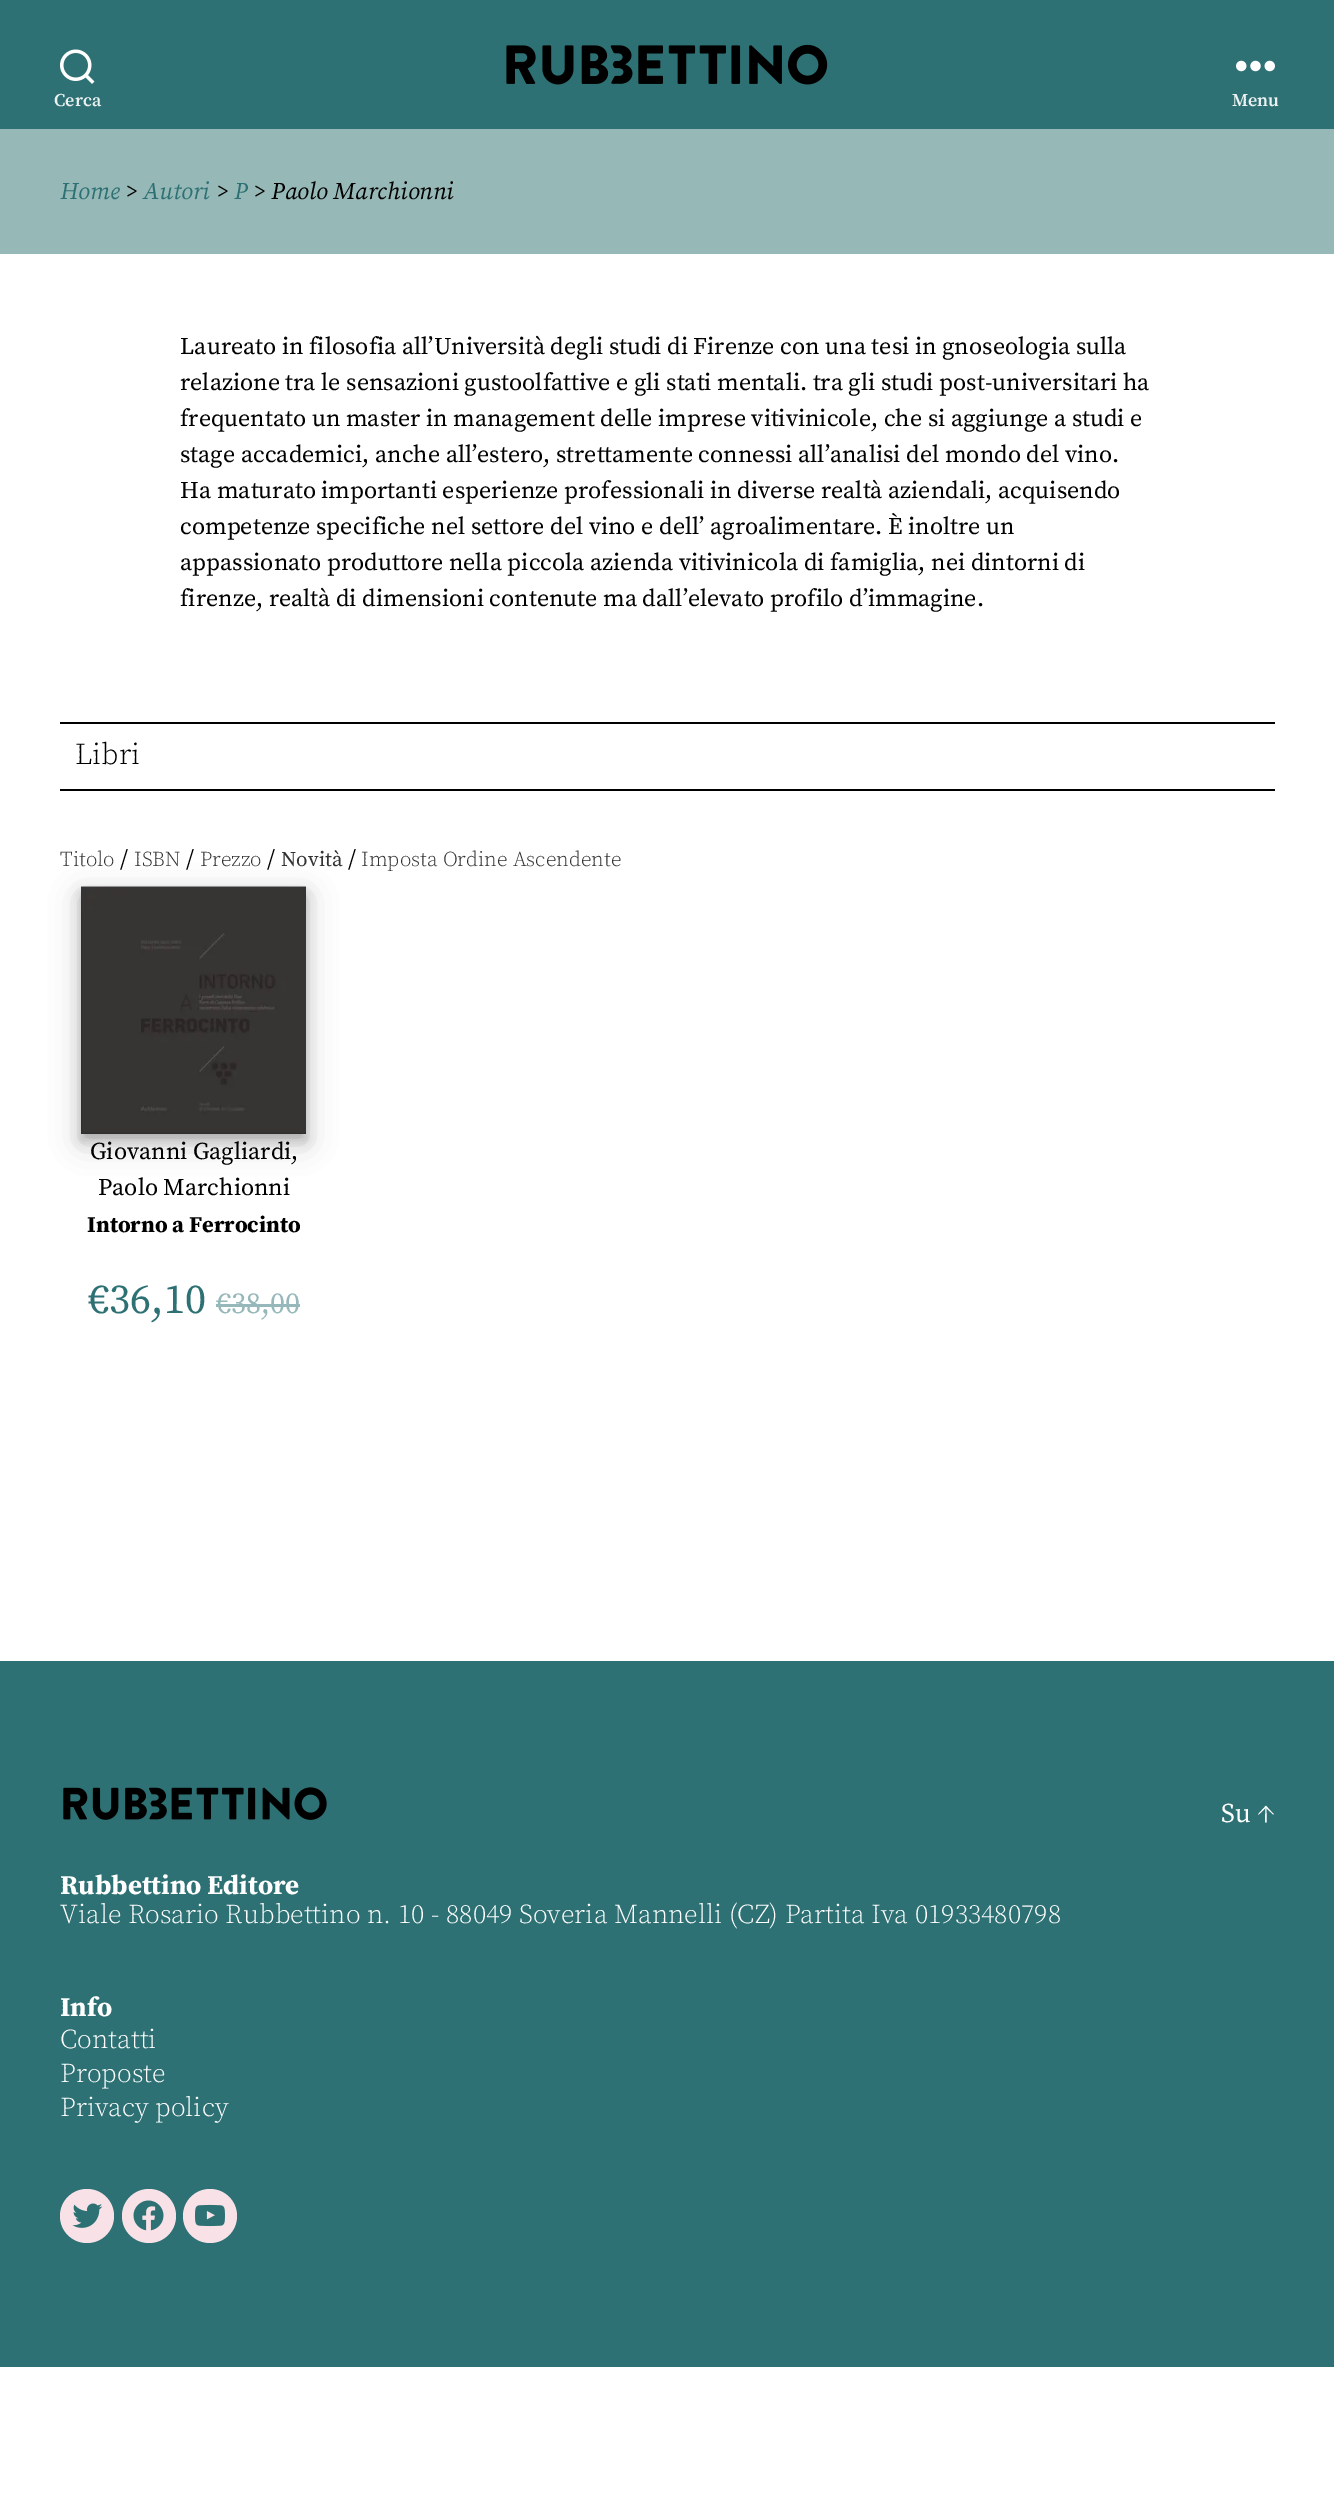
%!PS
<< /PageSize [1334 2508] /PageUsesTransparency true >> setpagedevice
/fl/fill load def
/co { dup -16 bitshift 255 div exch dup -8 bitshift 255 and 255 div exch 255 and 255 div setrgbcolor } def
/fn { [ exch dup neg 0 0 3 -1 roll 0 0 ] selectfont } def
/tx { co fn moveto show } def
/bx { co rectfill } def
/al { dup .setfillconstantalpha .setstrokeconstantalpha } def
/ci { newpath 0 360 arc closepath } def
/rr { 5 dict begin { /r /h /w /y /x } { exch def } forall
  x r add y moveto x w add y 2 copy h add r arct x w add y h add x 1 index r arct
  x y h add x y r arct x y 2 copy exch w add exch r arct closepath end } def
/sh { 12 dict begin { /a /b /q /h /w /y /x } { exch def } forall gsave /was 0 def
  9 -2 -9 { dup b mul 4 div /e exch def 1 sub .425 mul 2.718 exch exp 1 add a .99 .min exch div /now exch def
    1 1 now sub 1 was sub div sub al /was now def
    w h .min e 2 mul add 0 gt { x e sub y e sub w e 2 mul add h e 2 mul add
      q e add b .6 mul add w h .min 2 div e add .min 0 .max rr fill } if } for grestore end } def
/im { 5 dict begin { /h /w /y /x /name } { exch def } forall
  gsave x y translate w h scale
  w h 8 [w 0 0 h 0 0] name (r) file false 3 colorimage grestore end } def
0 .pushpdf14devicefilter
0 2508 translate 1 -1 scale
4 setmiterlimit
0 0 1334 2508 16#FFFFFF bx
0 0 1334 129 16#2E7174 bx
(media/1.raw) 506 44 322 41 im
(media/2.raw) 60 49 35 35 im
(media/3.raw) 1236 60 39 12 im
0 129 1334 125 16#96B8B6 bx
60 722 1215 2 16#000000 bx
60 789 1215 2 16#000000 bx
81 896 225 247 0 15 .19 sh
81 893 225 247 0 6 .2 sh
(media/4.raw) 81 886 225 248 im
216 1304 84 3 16#97B8BA bx
0 1661 1334 706 16#2E7174 bx
(media/5.raw) 63 1787 264 33 im
16#F8E2E7 co
87 2216 27 ci fl
(media/6.raw) 72 2203 31 25 im
149 2216 27 ci fl
(media/7.raw) 133 2200 31 31 im
210 2216 27 ci fl
(media/8.raw) 195 2204 30 23 im
(Cerca) 54 106 /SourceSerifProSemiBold-SemiBold 18 16#ECF2F2 tx
(Menu) 1232 106 /SourceSerifProSemiBold-SemiBold 18 16#ECF2F2 tx
(Home) 60 199 /SourceSerifPro-Italic 24 16#2E7174 tx
(>) 125 199 /SourceSerifPro-Italic 24 16#000000 tx
(Autori) 143 199 /SourceSerifPro-Italic 24 16#2E7174 tx
(>) 216 199 /SourceSerifPro-Italic 24 16#000000 tx
(P) 234 199 /SourceSerifPro-Italic 24 16#2E7174 tx
(> Paolo Marchionni) 253 199 /SourceSerifPro-Italic 24 16#000000 tx
(Laureato in filosofia all’Università degli studi di Firenze con una tesi in gnoseologia sulla) 180 354 /SourceSerifPro-Regular 24 16#000000 tx
(relazione tra le sensazioni gustoolfattive e gli stati mentali. tra gli studi post-universitari ha) 180 390 /SourceSerifPro-Regular 24 16#000000 tx
(frequentato un master in management delle imprese vitivinicole, che si aggiunge a studi e) 180 426 /SourceSerifPro-Regular 24 16#000000 tx
(stage accademici, anche all’estero, strettamente connessi all’analisi del mondo del vino.) 180 462 /SourceSerifPro-Regular 24 16#000000 tx
(Ha maturato importanti esperienze professionali in diverse realtà aziendali, acquisendo) 180 498 /SourceSerifPro-Regular 24 16#000000 tx
(competenze specifiche nel settore del vino e dell’ agroalimentare. È inoltre un) 180 534 /SourceSerifPro-Regular 24 16#000000 tx
(appassionato produttore nella piccola azienda vitivinicola di famiglia, nei dintorni di) 180 570 /SourceSerifPro-Regular 24 16#000000 tx
(firenze, realtà di dimensioni contenute ma dall’elevato profilo d’immagine.) 180 606 /SourceSerifPro-Regular 24 16#000000 tx
(Libri) 75 764 /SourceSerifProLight-Light 30 16#000000 tx
(Titolo) 60 866 /SourceSerifProLight-Light 21 16#333333 tx
(/) 120 866 /SourceSerifPro-Regular 24 16#000000 tx
(ISBN) 134 866 /SourceSerifProLight-Light 21 16#333333 tx
(/) 186 866 /SourceSerifPro-Regular 24 16#000000 tx
(Prezzo) 200 866 /SourceSerifProLight-Light 21 16#333333 tx
(/) 267 866 /SourceSerifPro-Regular 24 16#000000 tx
(Novità) 281 866 /SourceSerifPro-Regular 21 16#333333 tx
(/) 348 866 /SourceSerifPro-Regular 24 16#000000 tx
(Imposta Ordine Ascendente) 361 866 /SourceSerifProLight-Light 21 16#333333 tx
(Giovanni Gagliardi,) 90 1159 /SourceSerifPro-Regular 24 16#000000 tx
(Paolo Marchionni) 98 1195 /SourceSerifPro-Regular 24 16#000000 tx
(Intorno a Ferrocinto) 87 1232 /SourceSerifPro-Bold 22.5 16#000000 tx
(€36,10) 88 1313 /SourceSerifPro-Regular 42 16#2E7174 tx
(€38,00) 216 1313 /SourceSerifPro-Regular 30 16#97B8BA tx
(Su ↑) 1221 1822 /SourceSerifPro-Regular 27 16#FFFFFF tx
(Rubbettino Editore) 60 1894 /SourceSerifPro-Bold 27 16#FFFFFF tx
(Viale Rosario Rubbettino n. 10 - 88049 Soveria Mannelli \(CZ\) Partita Iva 01933480798) 60 1923 /SourceSerifProLight-Light 27 16#FFFFFF tx
(Info) 60 2016 /SourceSerifPro-Bold 27 16#FFFFFF tx
(Contatti) 60 2048 /SourceSerifProLight-Light 27 16#FFFFFF tx
(Proposte) 60 2082 /SourceSerifProLight-Light 27 16#FFFFFF tx
(Privacy policy) 60 2116 /SourceSerifProLight-Light 27 16#FFFFFF tx
.poppdf14devicefilter showpage
